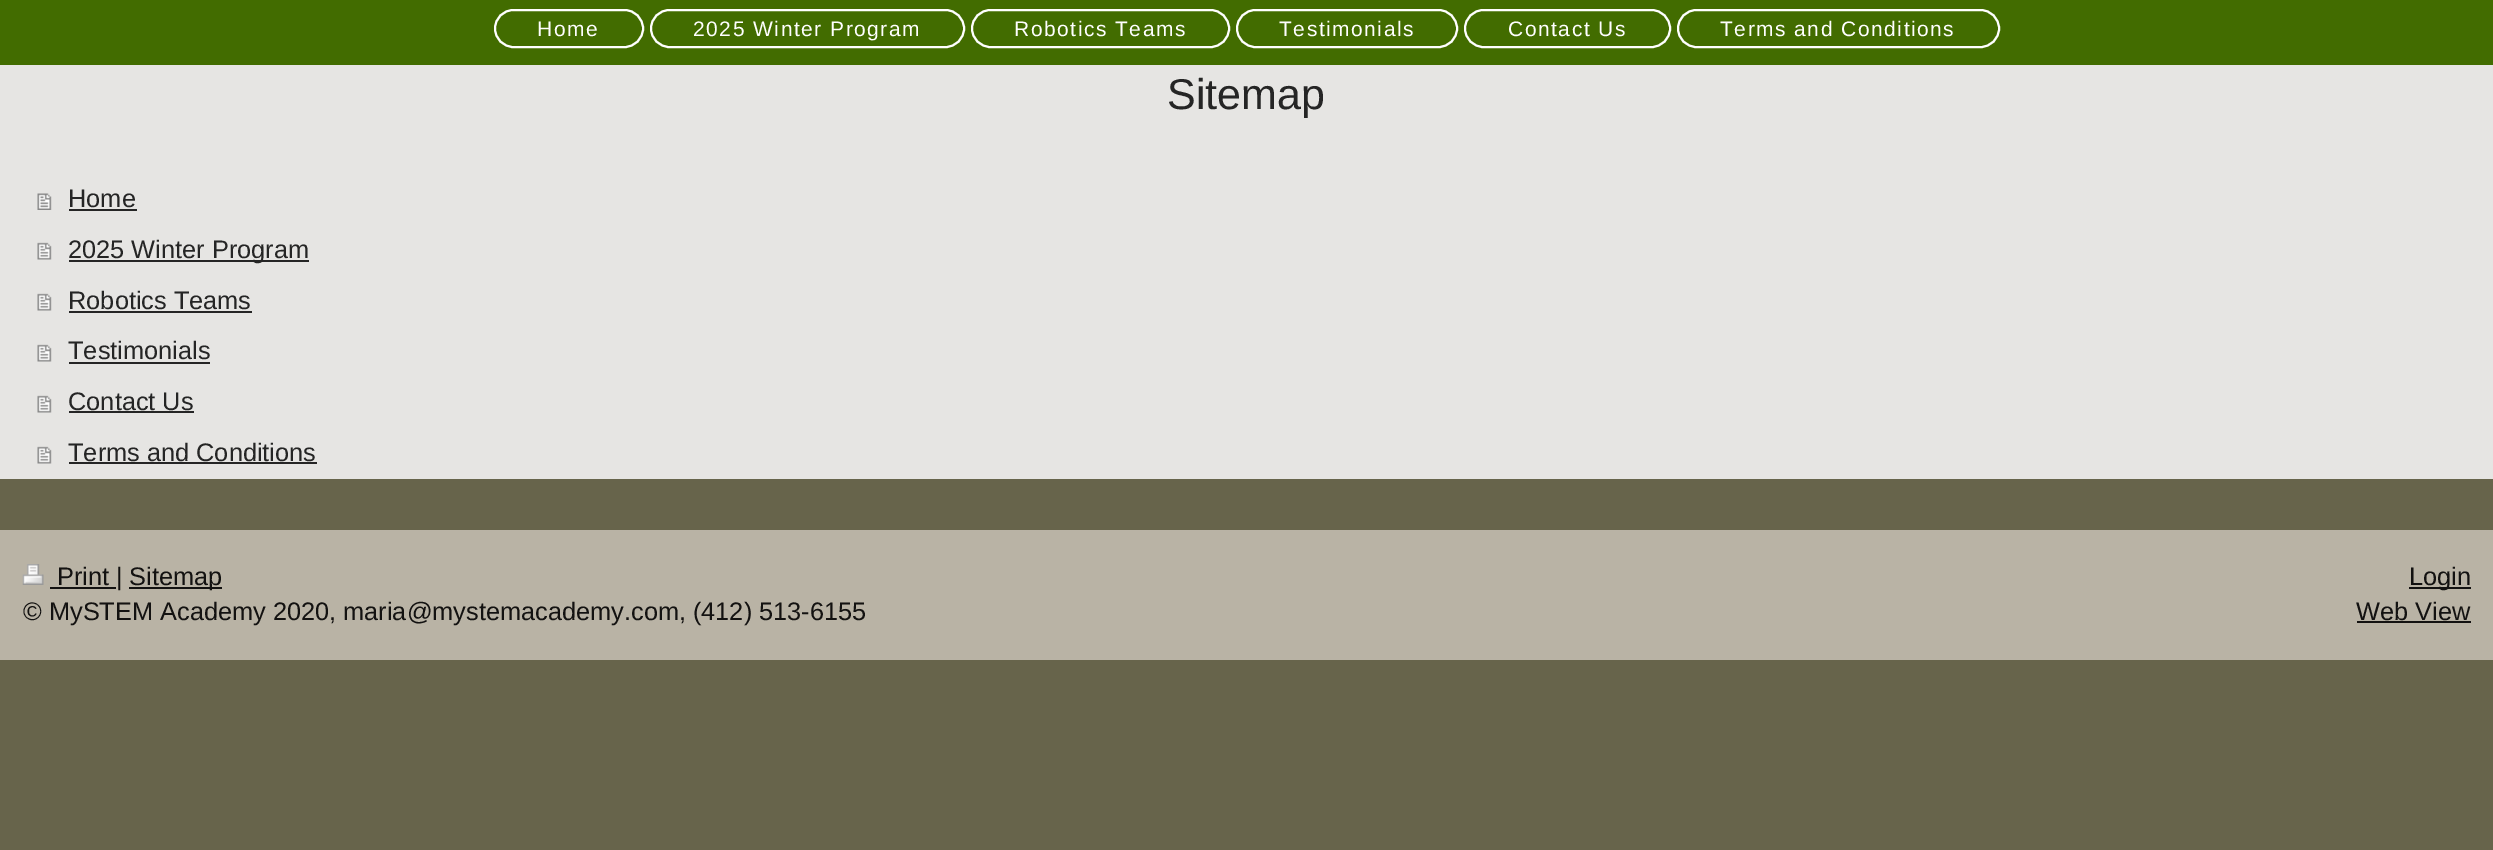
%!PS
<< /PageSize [2493 850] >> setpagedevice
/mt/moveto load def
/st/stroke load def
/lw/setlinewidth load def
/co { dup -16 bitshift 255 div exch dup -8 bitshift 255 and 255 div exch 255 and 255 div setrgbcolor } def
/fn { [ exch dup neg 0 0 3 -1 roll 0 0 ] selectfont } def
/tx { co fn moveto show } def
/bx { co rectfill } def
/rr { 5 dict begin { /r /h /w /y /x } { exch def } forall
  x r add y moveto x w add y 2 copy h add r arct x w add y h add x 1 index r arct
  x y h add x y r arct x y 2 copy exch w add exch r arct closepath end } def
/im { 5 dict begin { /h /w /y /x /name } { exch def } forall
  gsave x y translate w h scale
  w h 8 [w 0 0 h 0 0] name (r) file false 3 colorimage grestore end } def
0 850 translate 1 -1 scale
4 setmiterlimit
0 0 2493 850 16#67644B bx
0 0 2493 65 16#426C00 bx
16#FFFFFF co
2 lw
495 10 148 37 18.5 rr st
651 10 313 37 18.5 rr st
972 10 257 37 18.5 rr st
1237 10 220 37 18.5 rr st
1465 10 205 37 18.5 rr st
1678 10 321 37 18.5 rr st
0 65 2493 414 16#E6E5E3 bx
(media/1.raw) 37 193 15 17 im
69 209 68 2 16#252525 bx
(media/2.raw) 37 242 15 18 im
69 260 240 2 16#252525 bx
(media/2.raw) 37 293 15 18 im
69 311 183 2 16#252525 bx
(media/2.raw) 37 344 15 18 im
69 362 141 2 16#252525 bx
(media/2.raw) 37 395 15 18 im
69 411 125 2 16#252525 bx
(media/2.raw) 37 446 15 18 im
69 462 248 2 16#252525 bx
0 530 2493 130 16#B9B3A5 bx
(media/3.raw) 22 564 22 21 im
50 587 66 2 16#131211 bx
129 587 93 2 16#131211 bx
2409 587 62 2 16#131211 bx
2357 621 114 2 16#131211 bx
/LiberationSans-Regular 21 fn
16#FFFFFF co
537 36 mt 1.5 0 (Home) ashow
693 36 mt 1.5 0 (2025 Winter Program) ashow
1014 36 mt 1.5 0 (Robotics Teams) ashow
1279 36 mt 1.5 0 (Testimonials) ashow
1508 36 mt 1.5 0 (Contact Us) ashow
1720 36 mt 1.5 0 (Terms and Conditions) ashow
(Sitemap) 1167 109 /LiberationSans-Regular 43 16#252525 tx
(Home) 68 207 /LiberationSans-Regular 25.35 16#252525 tx
(2025 Winter Program) 68 258 /LiberationSans-Regular 25.35 16#252525 tx
(Robotics Teams) 68 309 /LiberationSans-Regular 25.35 16#252525 tx
(Testimonials) 68 359 /LiberationSans-Regular 25.35 16#252525 tx
(Contact Us) 68 410 /LiberationSans-Regular 25.35 16#252525 tx
(Terms and Conditions) 68 461 /LiberationSans-Regular 25.35 16#252525 tx
(Print |) 57 585 /LiberationSans-Regular 25.35 16#131211 tx
(Sitemap) 129 585 /LiberationSans-Regular 25.35 16#131211 tx
(© MySTEM Academy 2020, maria@mystemacademy.com, \(412\) 513-6155) 23 620 /LiberationSans-Regular 25.35 16#131211 tx
(Login) 2409 585 /LiberationSans-Regular 25.35 16#131211 tx
(Web View) 2356 620 /LiberationSans-Regular 25.35 16#131211 tx
showpage
